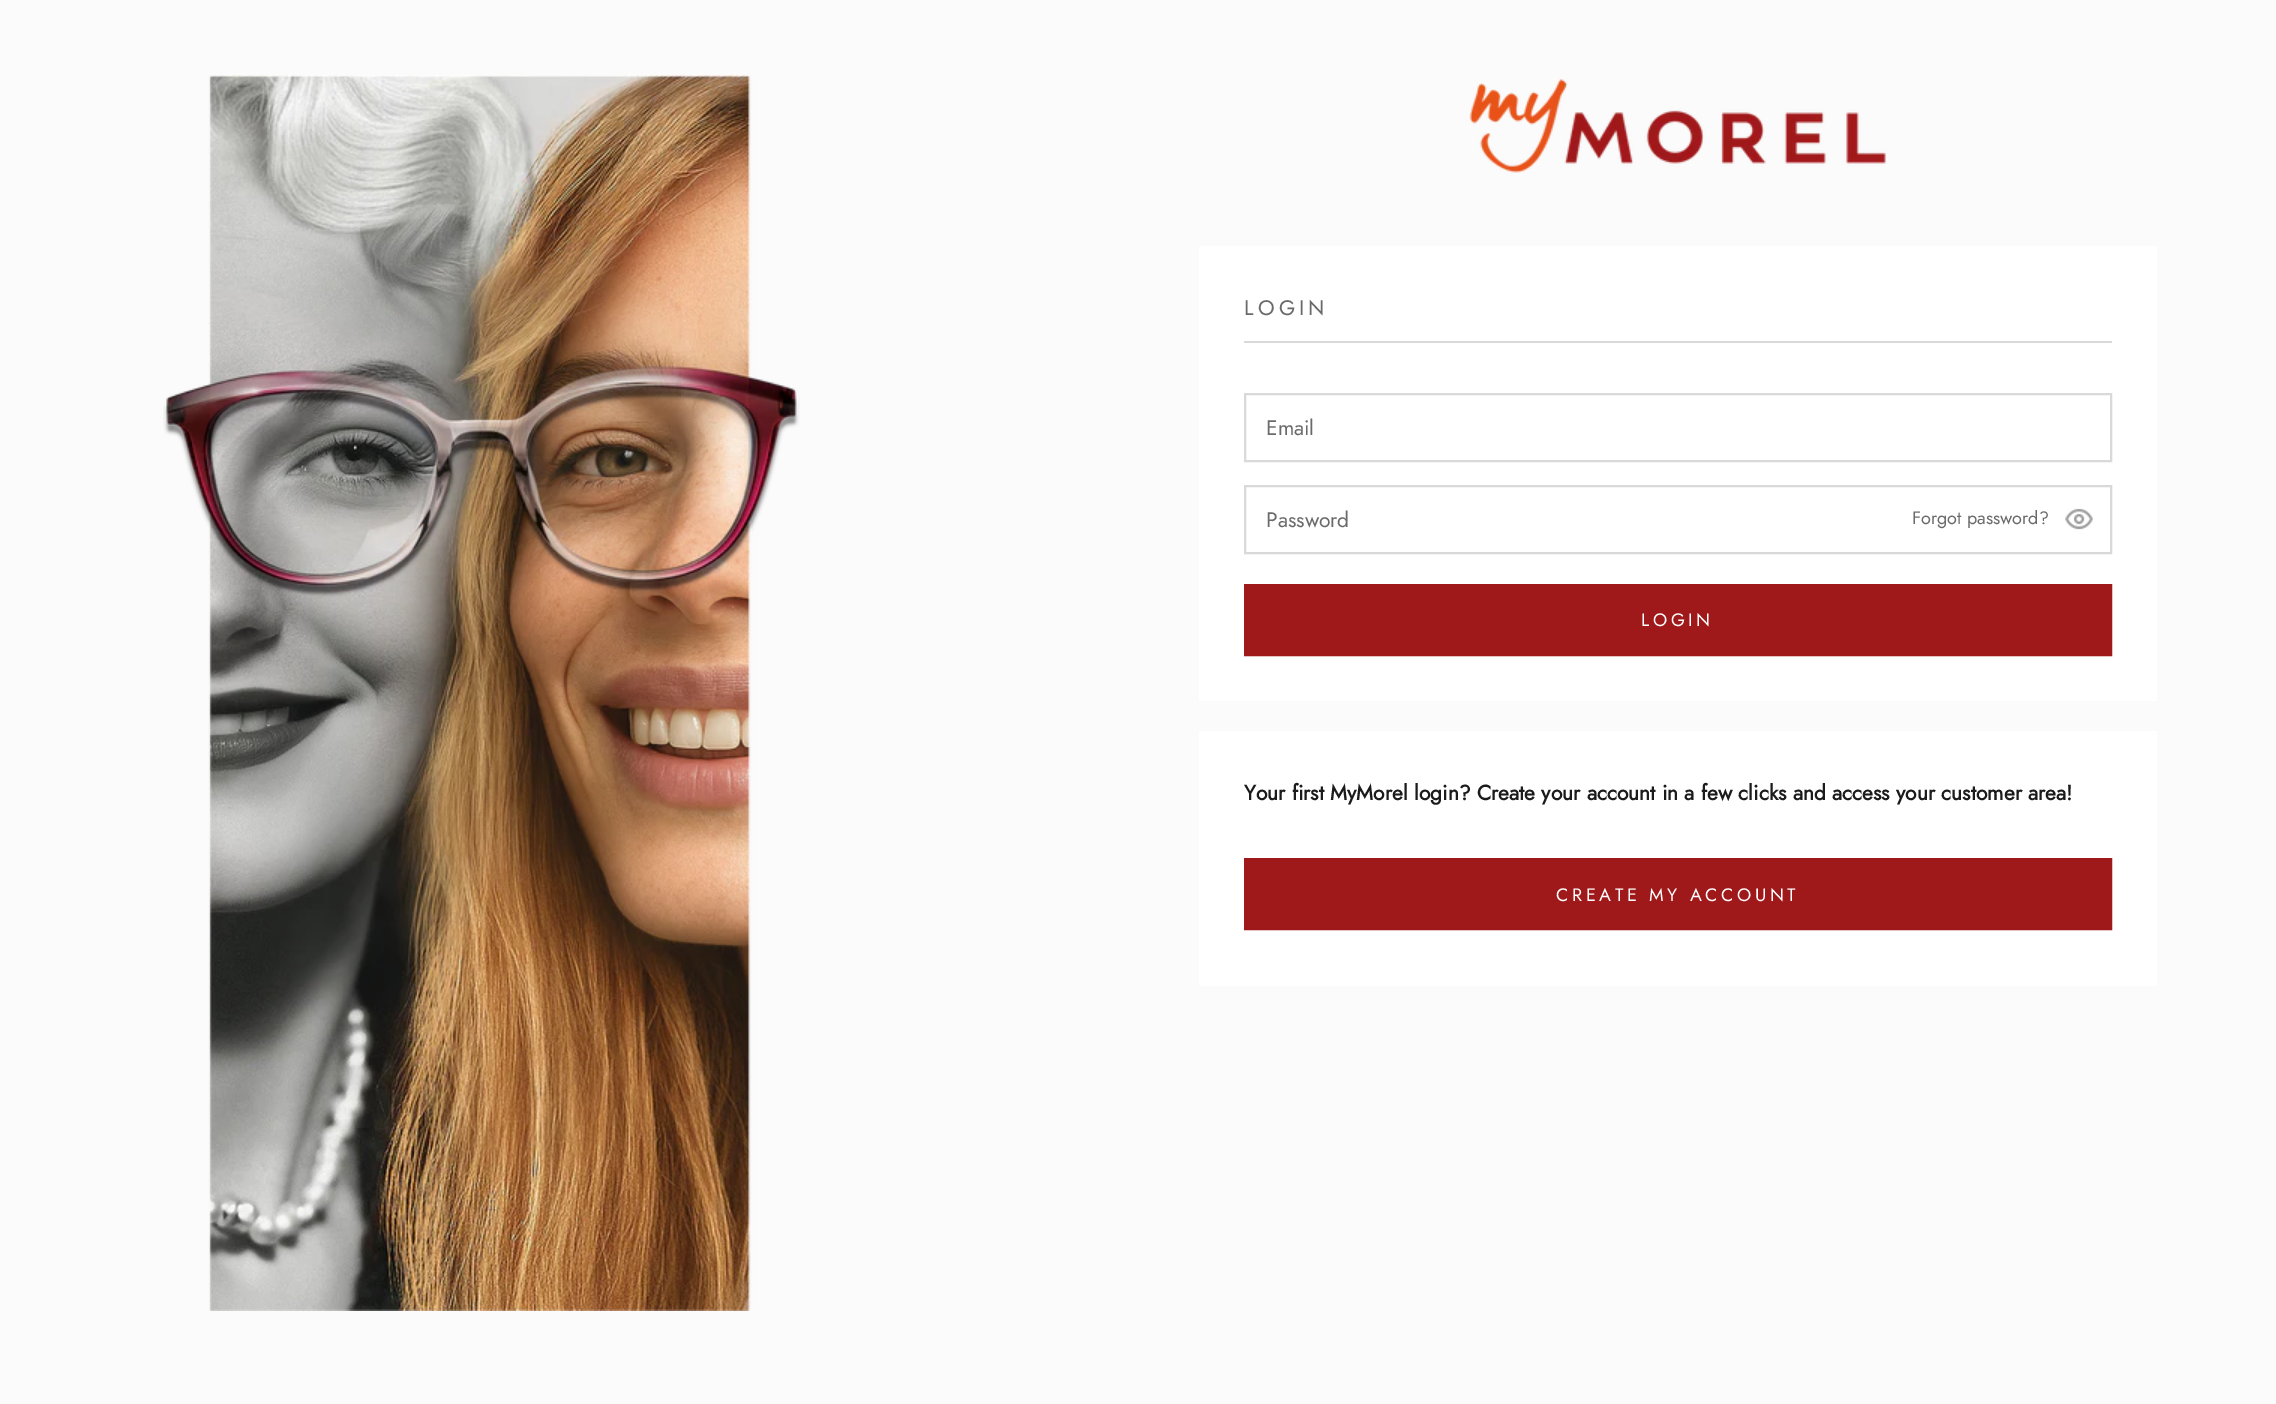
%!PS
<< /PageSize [2276 1404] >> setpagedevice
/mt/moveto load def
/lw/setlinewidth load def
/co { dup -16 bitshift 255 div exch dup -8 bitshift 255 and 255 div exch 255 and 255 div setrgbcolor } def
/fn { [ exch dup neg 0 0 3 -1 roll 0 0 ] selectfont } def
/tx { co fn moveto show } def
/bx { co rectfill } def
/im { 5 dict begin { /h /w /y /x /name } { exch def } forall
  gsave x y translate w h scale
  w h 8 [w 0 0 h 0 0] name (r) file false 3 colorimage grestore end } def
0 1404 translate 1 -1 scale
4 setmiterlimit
0 0 2276 1404 16#FBFBFB bx
(media/1.raw) 163 75 637 1236 im
(media/2.raw) 1469 79 417 94 im
1199 246 958 455 16#FFFFFF bx
1244 341 868 2 16#DAD9D9 bx
2 lw
1245 394 866 67 rectstroke
1245 486 866 67 rectstroke
(media/3.raw) 2065 508 28 22 im
16#A0191A co
1245 585 866 70 rectstroke
1246 586 864 68 16#A0191A bx
1199 731 958 255 16#FFFFFF bx
16#A0191A co
1245 859 866 70 rectstroke
1246 860 864 68 16#A0191A bx
/Jost-Regular 21 fn
16#6A6A6A co
1244 315 mt 4.25 0 (LOGIN) ashow
(Email) 1266 435 /Jost-Regular 21 16#6A6A6A tx
(Password) 1266 527 /Jost-Regular 21 16#6A6A6A tx
(Forgot password?) 1912 524 /Jost-Regular 18 16#6A6A6A tx
16#FFFFFF co
1641 626 mt 3.6 0 (LOGIN) ashow
(Your first MyMorel login? Create your account in a few clicks and access your customer area!) 1244 800 /Jost-Bold 21 16#1C1B1B tx
/Jost-Regular 18 fn
16#FFFFFF co
1556 901 mt 3.6 0 (CREATE MY ACCOUNT) ashow
showpage
